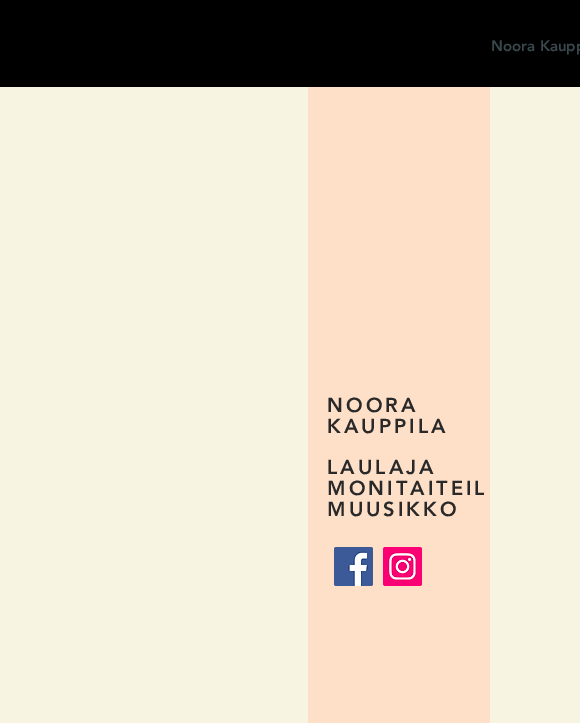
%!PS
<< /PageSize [580 723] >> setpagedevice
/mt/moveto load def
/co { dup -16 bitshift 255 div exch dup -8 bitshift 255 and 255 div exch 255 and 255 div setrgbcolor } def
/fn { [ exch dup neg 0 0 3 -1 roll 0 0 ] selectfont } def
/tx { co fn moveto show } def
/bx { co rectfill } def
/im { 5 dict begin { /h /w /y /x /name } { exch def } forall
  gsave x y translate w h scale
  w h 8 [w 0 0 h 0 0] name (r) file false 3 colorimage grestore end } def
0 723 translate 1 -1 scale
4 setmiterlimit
0 0 580 723 16#000000 bx
0 87 308 636 16#F7F5E1 bx
308 87 182 636 16#FEDFC8 bx
(media/1.raw) 334 547 39 39 im
(media/2.raw) 383 547 39 39 im
490 87 90 636 16#F7F5E1 bx
(Noora Kaupp) 491 51 /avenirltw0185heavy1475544-Black 15 16#39494E tx
/avenirltw0185heavy1475544-Black 20 fn
16#292929 co
327 412 mt 3 0 (NOORA) ashow
327 433 mt 3 0 (KAUPPILA) ashow
327 474 mt 3 0 (LAULAJA) ashow
327 495 mt 3 0 (MONITAITEIL) ashow
327 516 mt 3 0 (MUUSIKKO) ashow
showpage
